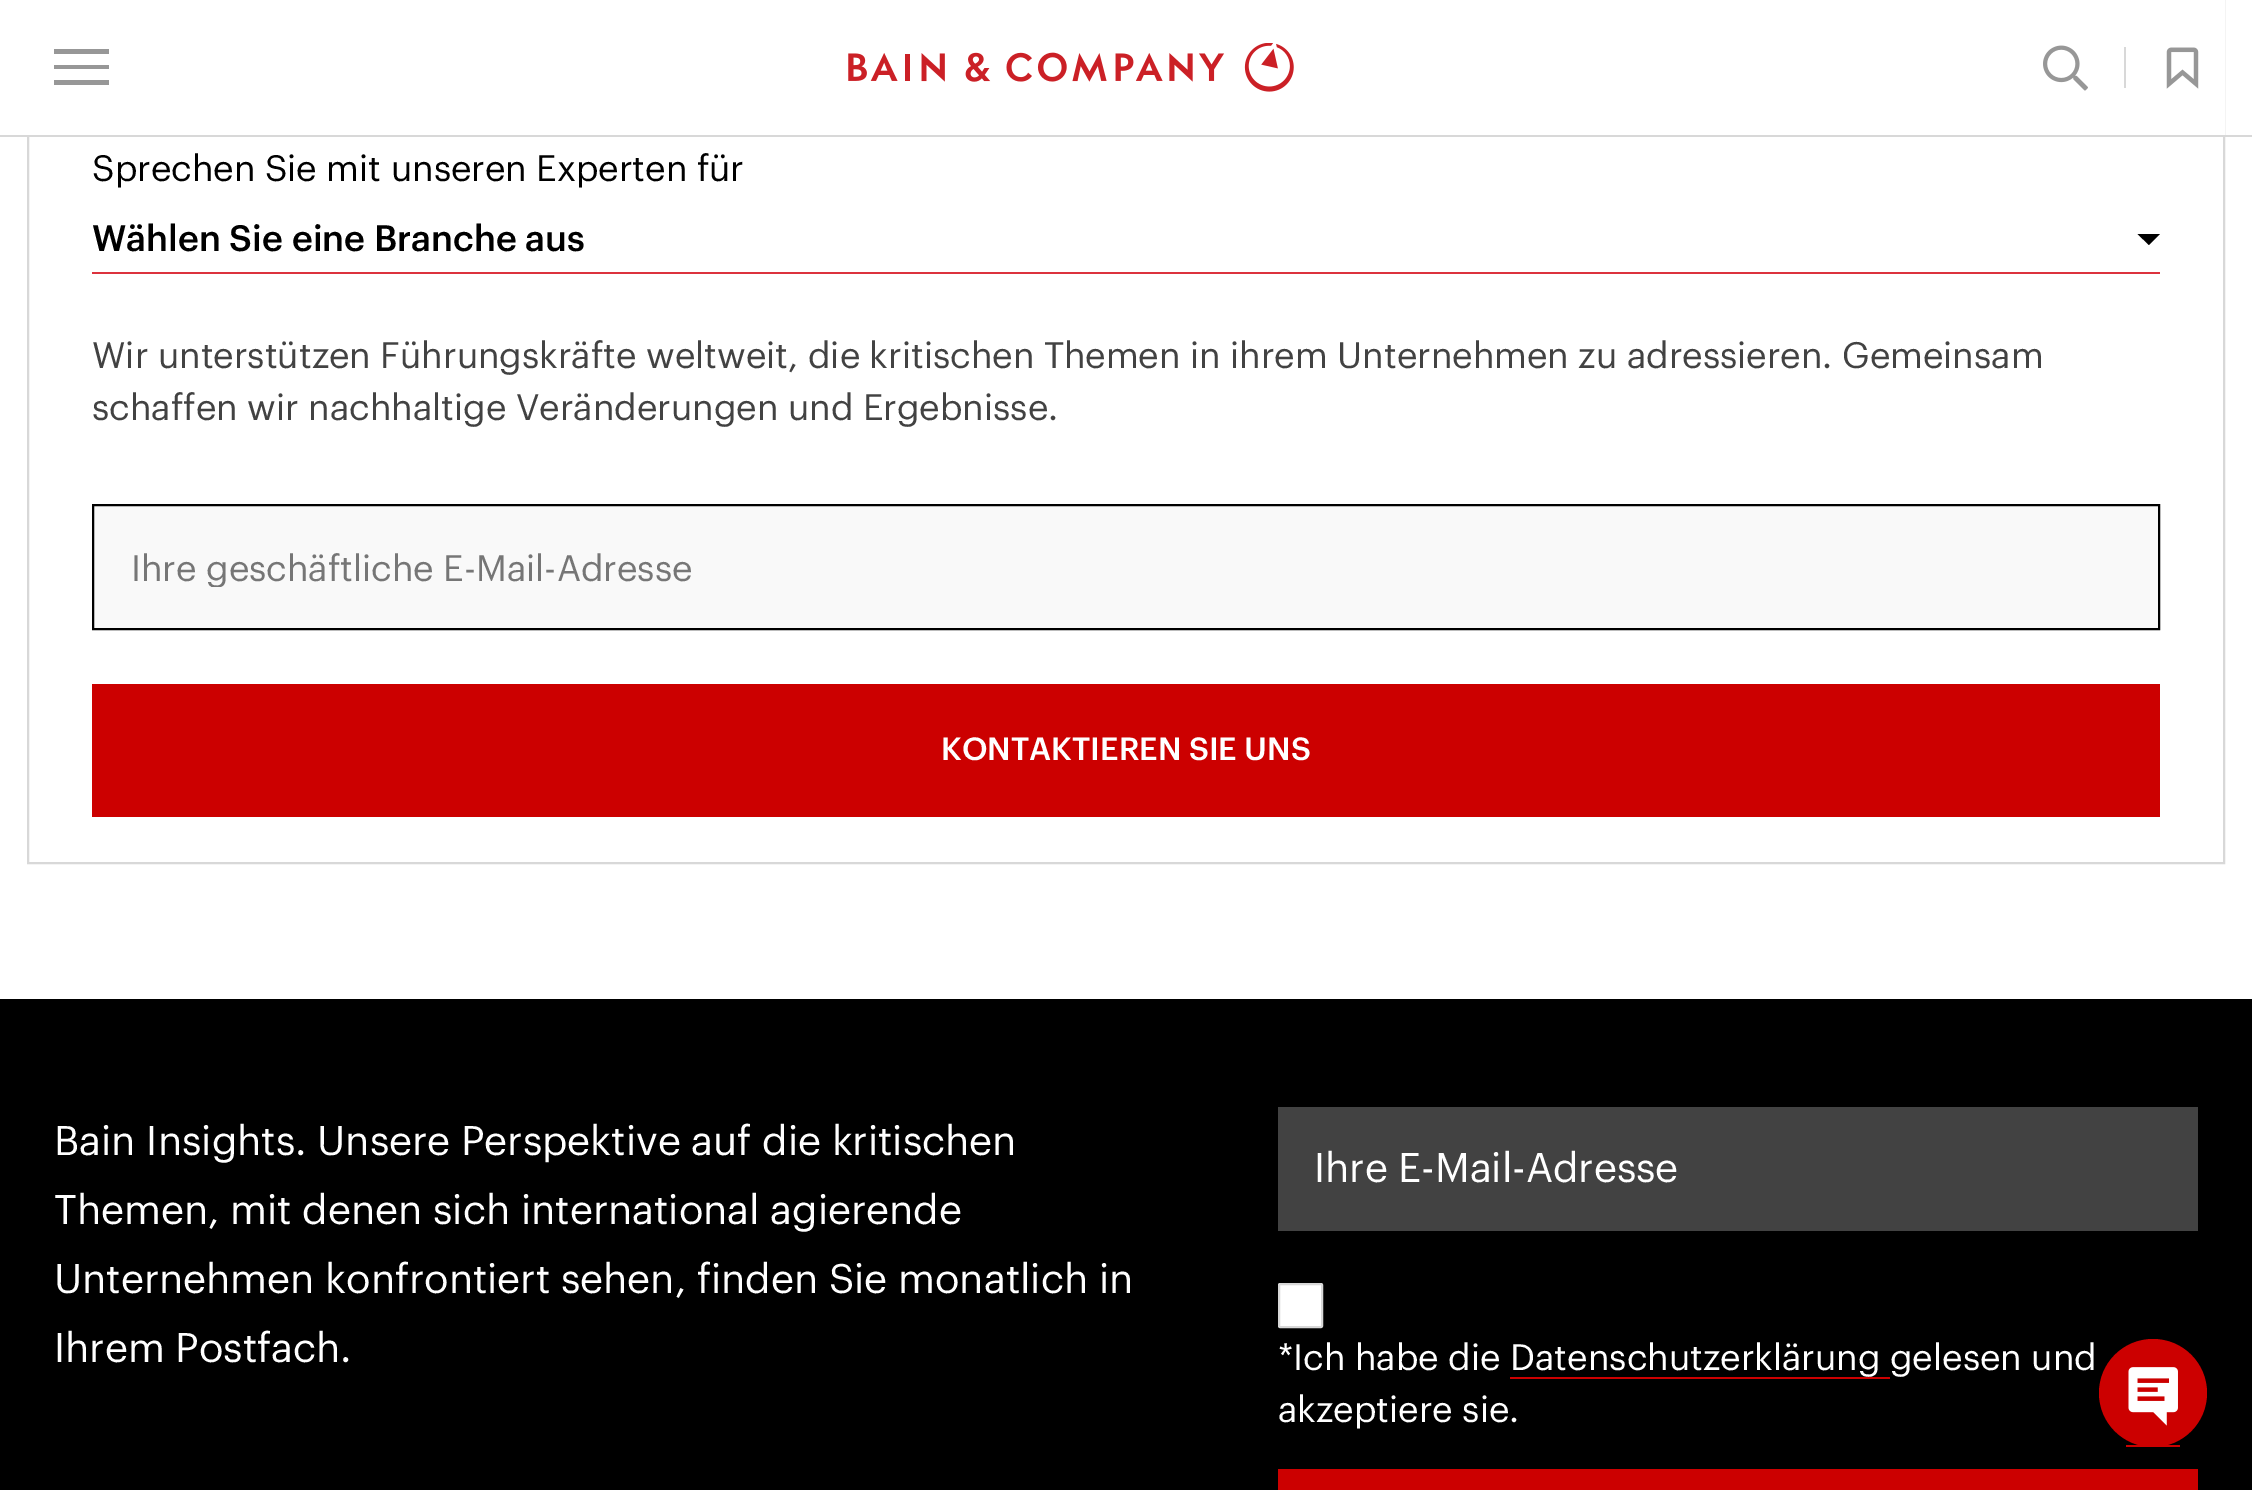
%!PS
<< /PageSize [2252 1490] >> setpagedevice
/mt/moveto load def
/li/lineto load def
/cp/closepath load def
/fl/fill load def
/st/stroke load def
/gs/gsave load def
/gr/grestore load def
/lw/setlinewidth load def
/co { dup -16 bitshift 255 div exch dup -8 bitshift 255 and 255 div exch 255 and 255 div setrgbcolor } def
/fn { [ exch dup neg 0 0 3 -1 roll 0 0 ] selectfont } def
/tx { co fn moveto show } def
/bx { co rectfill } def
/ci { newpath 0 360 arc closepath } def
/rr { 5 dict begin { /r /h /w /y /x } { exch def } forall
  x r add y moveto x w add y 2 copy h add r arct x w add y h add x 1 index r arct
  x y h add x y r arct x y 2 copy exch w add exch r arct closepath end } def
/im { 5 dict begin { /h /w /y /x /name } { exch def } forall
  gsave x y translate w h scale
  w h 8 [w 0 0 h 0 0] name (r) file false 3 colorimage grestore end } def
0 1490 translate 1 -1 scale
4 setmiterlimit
0 0 2252 1490 16#FFFFFF bx
16#D8D8D8 co
2 lw
28 -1 2196 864 rectstroke
27 0 2198 135 16#FFFFFF bx
0 135 2252 2 16#D8D8D8 bx
16#979797 co
54 49 mt 109 49 li 109 54 li 54 54 li cp 54 65 mt 109 65 li 109 69 li 54 69 li cp 54 80 mt 109 80 li 109 85 li 54 85 li cp fl
(media/1.raw) 848 43 446 49 im
(media/2.raw) 2043 45 45 46 im
2124 47 2 41 16#D8D8D8 bx
(media/3.raw) 2166 47 33 42 im
92 272 2068 2 16#DC323D bx
16#000000 co
2137.5 234 mt 2160 234 li 2149 245 li cp fl
16#F9F9F9 co
93 505 mt 2159 505 li 2159 629 li 93 629 li cp gs fl gr
16#000000 co
st
92 684 2068 133 16#CC0000 bx
0 999 2252 491 16#000000 bx
1278 1107 920 124 16#424242 bx
16#FFFFFF co
1279 1284 43 43 1 rr gs fl gr
16#D8D8D8 co
st
1510 1377 380 2 16#CC0000 bx
1278 1469 920 21 16#CC0000 bx
2153 1393 54 ci fl
2126 1445 54 2 16#CC0000 bx
(media/4.raw) 2128 1367 50 59 im
(Sprechen Sie mit unseren Experten für) 92 181 /Graphik-Regular 36 16#000000 tx
(Wählen Sie eine Branche aus) 92 251 /Graphik-Medium 36 16#000000 tx
(Wir unterstützen Führungskräfte weltweit, die kritischen Themen in ihrem Unternehmen zu adressieren. Gemeinsam) 92 368 /Graphik-Regular 36 16#424242 tx
(schaffen wir nachhaltige Veränderungen und Ergebnisse.) 92 420 /Graphik-Regular 36 16#424242 tx
gs
131 545 1991 42 rectclip
(Ihre geschäftliche E-Mail-Adresse) 131 581 /Graphik-Regular 36 16#767676 tx
gr
(KONTAKTIEREN SIE UNS) 941 760 /Graphik-Medium 31.5 16#FFFFFF tx
(Bain Insights. Unsere Perspektive auf die kritischen) 54 1155 /Graphik-Regular 40.5 16#FFFFFF tx
(Themen, mit denen sich international agierende) 54 1224 /Graphik-Regular 40.5 16#FFFFFF tx
(Unternehmen konfrontiert sehen, finden Sie monatlich in) 54 1293 /Graphik-Regular 40.5 16#FFFFFF tx
(Ihrem Postfach.) 54 1362 /Graphik-Regular 40.5 16#FFFFFF tx
(Ihre E-Mail-Adresse) 1314 1182 /Graphik-Regular 40.5 16#FFFFFF tx
(*Ich habe die Datenschutzerklärung gelesen und) 1278 1370 /Graphik-Regular 36 16#FFFFFF tx
(akzeptiere sie.) 1278 1422 /Graphik-Regular 36 16#FFFFFF tx
showpage
